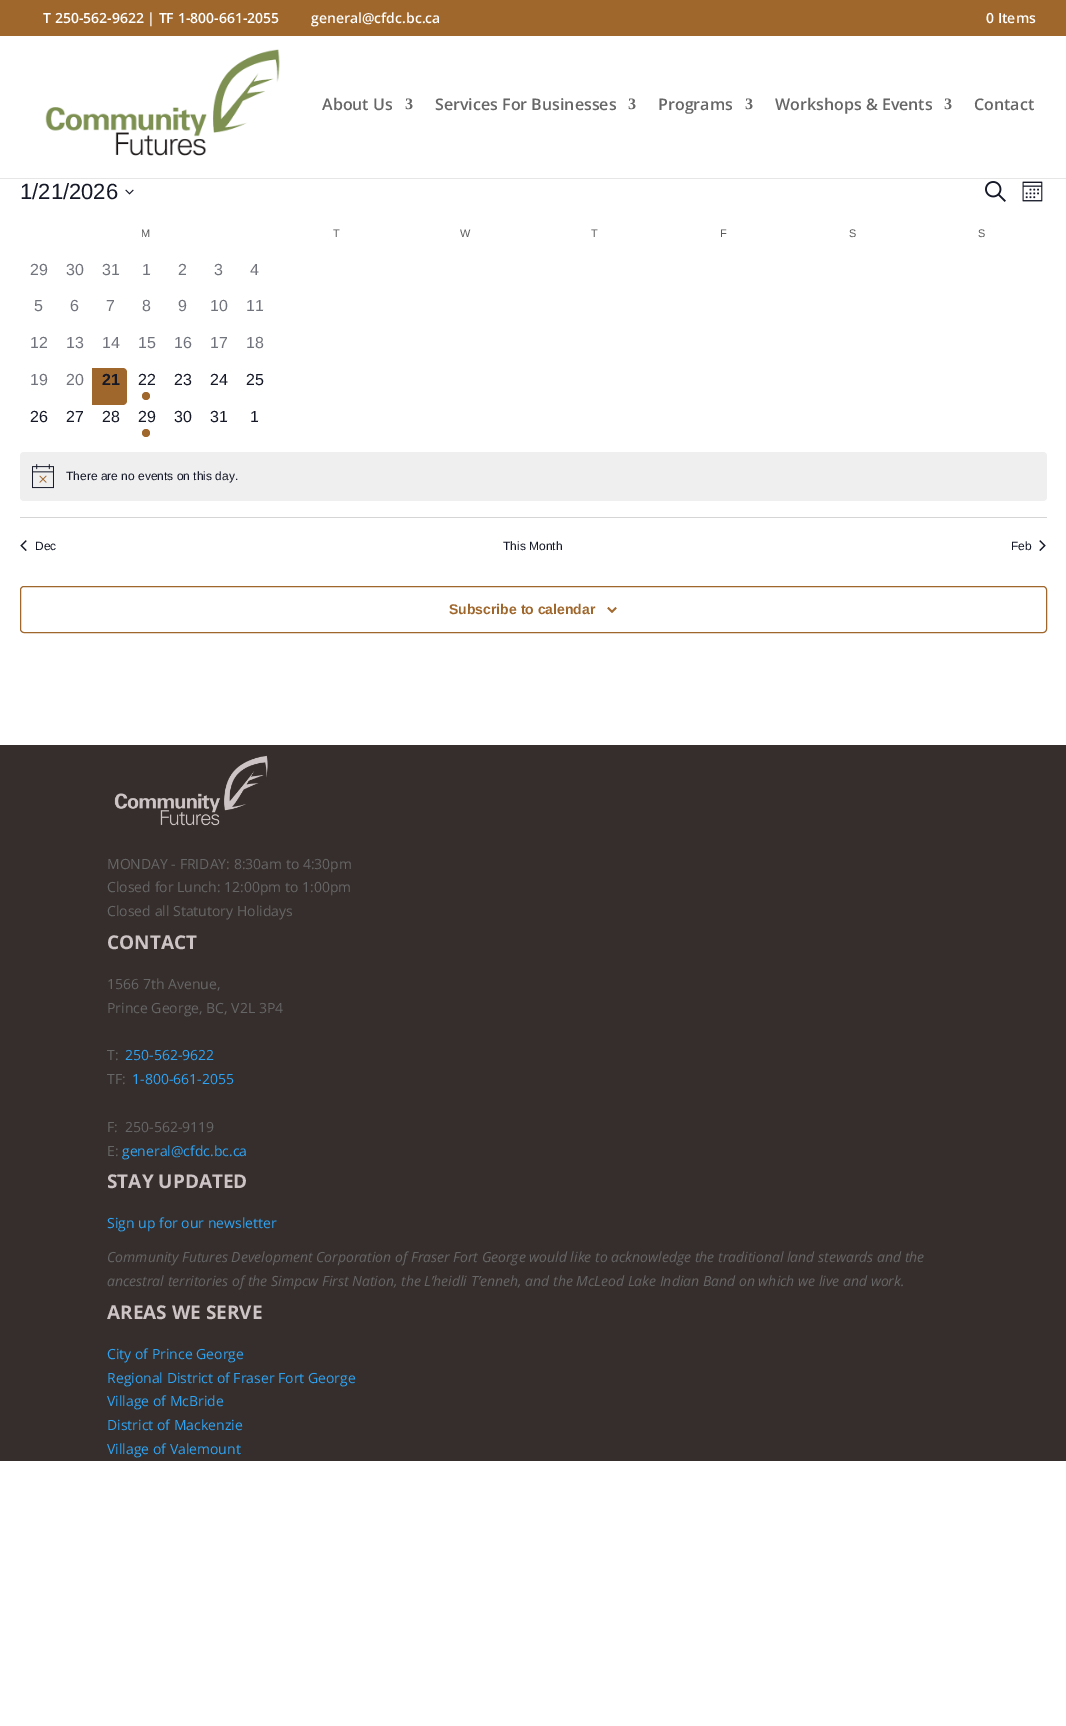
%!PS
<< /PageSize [1066 1726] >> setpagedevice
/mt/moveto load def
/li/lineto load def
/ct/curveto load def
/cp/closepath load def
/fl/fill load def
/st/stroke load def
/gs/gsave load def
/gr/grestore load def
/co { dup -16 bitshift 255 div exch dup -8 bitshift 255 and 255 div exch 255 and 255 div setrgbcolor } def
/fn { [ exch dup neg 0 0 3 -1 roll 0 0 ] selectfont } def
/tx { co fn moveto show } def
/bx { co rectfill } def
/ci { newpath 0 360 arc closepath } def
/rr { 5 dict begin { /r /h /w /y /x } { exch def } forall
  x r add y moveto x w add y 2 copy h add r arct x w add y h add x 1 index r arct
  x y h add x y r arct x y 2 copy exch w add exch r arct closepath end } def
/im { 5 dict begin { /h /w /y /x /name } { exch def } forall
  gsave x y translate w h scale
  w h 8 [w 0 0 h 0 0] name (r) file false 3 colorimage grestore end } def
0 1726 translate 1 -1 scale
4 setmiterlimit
0 0 1066 1726 16#FFFFFF bx
0 0 1066 36 16#A0672D bx
0 178 1066 1 16#E6E6E6 bx
(media/1.raw) 45 49 235 107 im
(media/2.raw) 125 189 9 6 im
(media/3.raw) 985 181 21 21 im
(media/4.raw) 1022 181 21 21 im
gs
91 368 36 37 4 rr clip newpath
16#A0672D co
92 368 mt 123 368 li 125 368 127 370 127 372 ct 127 401 li 127 403 125 405 123 405 ct 92 405 li cp fl
gr
16#A0672D co
146 396 4 ci fl
146 433 4 ci fl
16#EFEFF0 co
20 452 1027 49 4 rr fl
(media/5.raw) 32 464 22 25 im
20 517 1027 1 16#D5D5D5 bx
(media/6.raw) 20 540 7 11 im
(media/7.raw) 1039 540 7 11 im
16#A0672D co
20.5 586.5 1026 46 3.5 rr st
(media/8.raw) 607 607 10 6 im
0 745 1066 716 16#362E2C bx
(media/9.raw) 114 755 154 71 im
(T 250-562-9622 | TF 1-800-661-2055) 43 23 /OpenSans-SemiBold 14 16#FFFFFF tx
(general@cfdc.bc.ca) 311 23 /OpenSans-SemiBold 14 16#FFFFFF tx
(0 Items) 986 23 /OpenSans-SemiBold 14 16#FFFFFF tx
(About Us) 322 110 /OpenSans-SemiBold 16 16#666666 tx
(3) 405 109 /LiberationSerif-Bold 16 16#666666 tx
(Services For Businesses) 435 110 /OpenSans-SemiBold 16 16#666666 tx
(3) 628 109 /LiberationSerif-Bold 16 16#666666 tx
(Programs) 658 110 /OpenSans-SemiBold 16 16#666666 tx
(3) 745 109 /LiberationSerif-Bold 16 16#666666 tx
(Workshops & Events) 775 110 /OpenSans-SemiBold 16 16#666666 tx
(3) 944 109 /LiberationSerif-Bold 16 16#666666 tx
(Contact) 974 110 /OpenSans-SemiBold 16 16#666666 tx
(1/21/2026) 20 199 /LiberationSans-Regular 22 16#141827 tx
(M) 141 237 /LiberationSans-Regular 11 16#5D5D5D tx
(T) 333 237 /LiberationSans-Regular 11 16#5D5D5D tx
(W) 460 237 /LiberationSans-Regular 11 16#5D5D5D tx
(T) 591 237 /LiberationSans-Regular 11 16#5D5D5D tx
(F) 720 237 /LiberationSans-Regular 11 16#5D5D5D tx
(S) 849 237 /LiberationSans-Regular 11 16#5D5D5D tx
(S) 978 237 /LiberationSans-Regular 11 16#5D5D5D tx
(29) 30 275 /LiberationSans-Regular 16 16#72747D tx
(30) 66 275 /LiberationSans-Regular 16 16#72747D tx
(31) 102 275 /LiberationSans-Regular 16 16#72747D tx
(1) 142 275 /LiberationSans-Regular 16 16#72747D tx
(2) 178 275 /LiberationSans-Regular 16 16#72747D tx
(3) 214 275 /LiberationSans-Regular 16 16#72747D tx
(4) 250 275 /LiberationSans-Regular 16 16#72747D tx
(5) 34 311 /LiberationSans-Regular 16 16#72747D tx
(6) 70 311 /LiberationSans-Regular 16 16#72747D tx
(7) 106 311 /LiberationSans-Regular 16 16#72747D tx
(8) 142 311 /LiberationSans-Regular 16 16#72747D tx
(9) 178 311 /LiberationSans-Regular 16 16#72747D tx
(10) 210 311 /LiberationSans-Regular 16 16#72747D tx
(11) 246 311 /LiberationSans-Regular 16 16#72747D tx
(12) 30 348 /LiberationSans-Regular 16 16#72747D tx
(13) 66 348 /LiberationSans-Regular 16 16#72747D tx
(14) 102 348 /LiberationSans-Regular 16 16#72747D tx
(15) 138 348 /LiberationSans-Regular 16 16#72747D tx
(16) 174 348 /LiberationSans-Regular 16 16#72747D tx
(17) 210 348 /LiberationSans-Regular 16 16#72747D tx
(18) 246 348 /LiberationSans-Regular 16 16#72747D tx
(19) 30 385 /LiberationSans-Regular 16 16#72747D tx
(20) 66 385 /LiberationSans-Regular 16 16#72747D tx
(21) 102 385 /LiberationSans-Bold 16 16#141827 tx
(22) 138 385 /LiberationSans-Regular 16 16#141827 tx
(23) 174 385 /LiberationSans-Regular 16 16#141827 tx
(24) 210 385 /LiberationSans-Regular 16 16#141827 tx
(25) 246 385 /LiberationSans-Regular 16 16#141827 tx
(26) 30 422 /LiberationSans-Regular 16 16#141827 tx
(27) 66 422 /LiberationSans-Regular 16 16#141827 tx
(28) 102 422 /LiberationSans-Regular 16 16#141827 tx
(29) 138 422 /LiberationSans-Regular 16 16#141827 tx
(30) 174 422 /LiberationSans-Regular 16 16#141827 tx
(31) 210 422 /LiberationSans-Regular 16 16#141827 tx
(1) 250 422 /LiberationSans-Regular 16 16#141827 tx
(There are no events on this day.) 66 480 /LiberationSans-Regular 12 16#141827 tx
(Dec) 35 550 /LiberationSans-Regular 12 16#141827 tx
(This Month) 503 550 /LiberationSans-Regular 12 16#141827 tx
(Feb) 1011 550 /LiberationSans-Regular 12 16#141827 tx
(Subscribe to calendar) 449 614 /LiberationSans-Bold 14 16#A0672D tx
(MONDAY - FRIDAY: 8:30am to 4:30pm) 107 869 /OpenSans-Regular 14 16#666666 tx
(Closed for Lunch: 12:00pm to 1:00pm) 107 892 /OpenSans-Regular 14 16#666666 tx
(Closed all Statutory Holidays) 107 916 /OpenSans-Regular 14 16#666666 tx
(CONTACT) 107 949 /OpenSans-Bold 19 16#CDC4C5 tx
(1566 7th Avenue,) 107 989 /OpenSans-Regular 14 16#666666 tx
(Prince George, BC, V2L 3P4) 107 1013 /OpenSans-Regular 14 16#666666 tx
(T:) 107 1060 /OpenSans-Regular 14 16#666666 tx
(250-562-9622) 125 1060 /OpenSans-Regular 14 16#2EA3F2 tx
(TF:) 107 1084 /OpenSans-Regular 14 16#666666 tx
(1-800-661-2055) 132 1084 /OpenSans-Regular 14 16#2EA3F2 tx
(F:  250-562-9119) 107 1132 /OpenSans-Regular 14 16#666666 tx
(E:) 107 1156 /OpenSans-Regular 14 16#666666 tx
(general@cfdc.bc.ca) 122 1156 /OpenSans-Regular 14 16#2EA3F2 tx
(STAY UPDATED) 107 1188 /OpenSans-Bold 19 16#CDC4C5 tx
(Sign up for our newsletter) 107 1228 /OpenSans-Regular 14 16#2EA3F2 tx
(Community Futures Development Corporation of Fraser Fort George would like to acknowledge the traditional land stewards and the) 107 1262 /OpenSans-Italic 14 16#666666 tx
(ancestral territories of the Simpcw First Nation, the L’heidli T’enneh, and the McLeod Lake Indian Band on which we live and work.) 107 1286 /OpenSans-Italic 14 16#666666 tx
(AREAS WE SERVE) 107 1319 /OpenSans-Bold 19 16#CDC4C5 tx
(City of Prince George) 107 1359 /OpenSans-Regular 14 16#2EA3F2 tx
(Regional District of Fraser Fort George) 107 1383 /OpenSans-Regular 14 16#2EA3F2 tx
(Village of McBride) 107 1406 /OpenSans-Regular 14 16#2EA3F2 tx
(District of Mackenzie) 107 1430 /OpenSans-Regular 14 16#2EA3F2 tx
(Village of Valemount) 107 1454 /OpenSans-Regular 14 16#2EA3F2 tx
showpage
